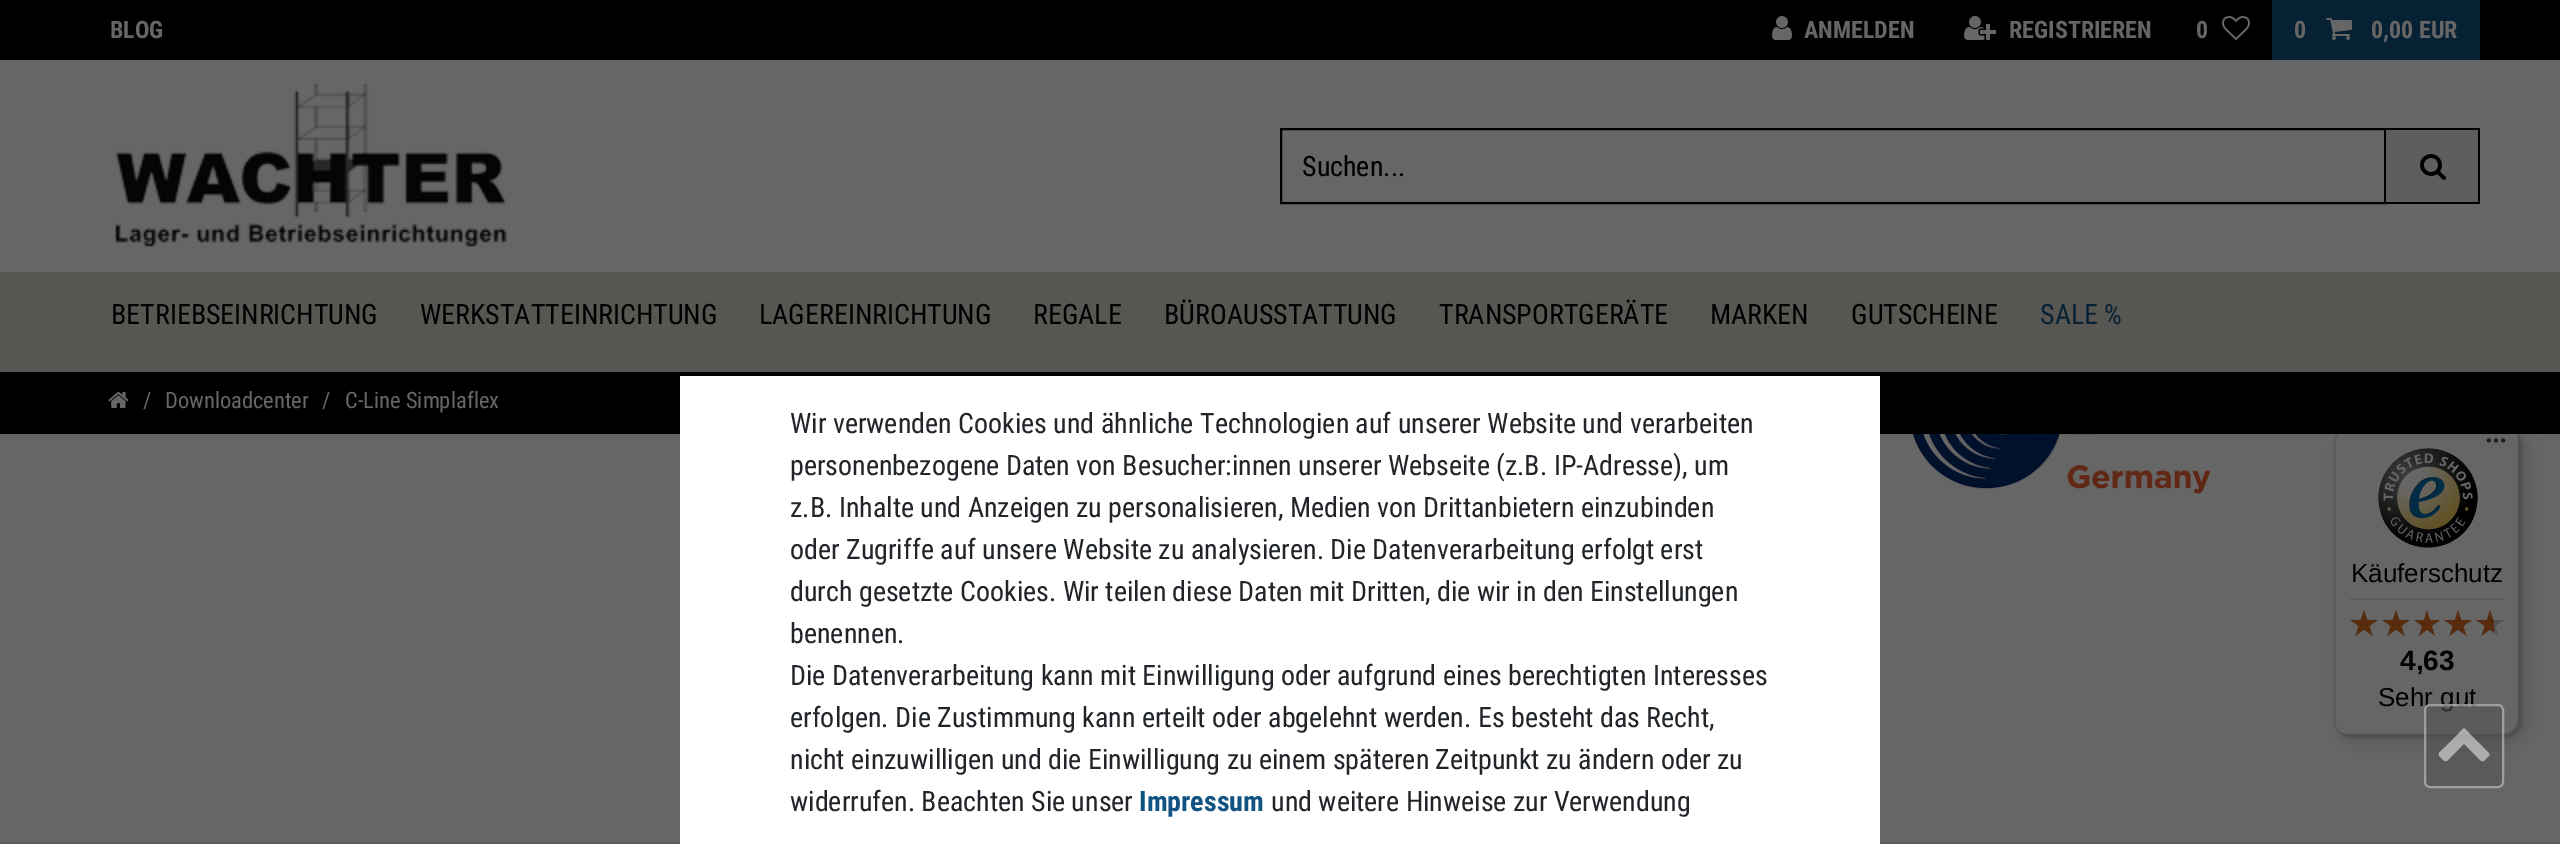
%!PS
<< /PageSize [2560 844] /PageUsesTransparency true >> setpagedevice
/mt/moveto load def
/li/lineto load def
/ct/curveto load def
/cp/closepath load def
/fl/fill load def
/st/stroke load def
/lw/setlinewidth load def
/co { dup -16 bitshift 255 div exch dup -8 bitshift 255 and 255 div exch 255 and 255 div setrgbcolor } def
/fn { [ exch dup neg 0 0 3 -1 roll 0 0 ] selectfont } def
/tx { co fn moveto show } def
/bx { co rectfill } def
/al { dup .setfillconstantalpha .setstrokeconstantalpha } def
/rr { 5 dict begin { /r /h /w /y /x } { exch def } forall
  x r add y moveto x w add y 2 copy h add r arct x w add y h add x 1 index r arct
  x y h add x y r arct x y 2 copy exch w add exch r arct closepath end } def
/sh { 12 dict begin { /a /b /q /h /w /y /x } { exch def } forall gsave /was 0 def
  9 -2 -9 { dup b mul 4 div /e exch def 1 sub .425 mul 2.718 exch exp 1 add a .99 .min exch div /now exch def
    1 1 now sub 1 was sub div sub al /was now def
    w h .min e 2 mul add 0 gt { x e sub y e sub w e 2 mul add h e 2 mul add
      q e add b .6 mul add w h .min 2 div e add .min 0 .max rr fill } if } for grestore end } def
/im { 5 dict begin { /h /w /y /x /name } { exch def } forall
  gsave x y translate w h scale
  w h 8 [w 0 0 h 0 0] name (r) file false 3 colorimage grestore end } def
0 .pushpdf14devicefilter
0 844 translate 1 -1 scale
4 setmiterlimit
0 0 2560 844 16#666666 bx
0 0 2560 60 16#000000 bx
(media/1.raw) 1772 16 20 24 im
(media/2.raw) 1964 16 32 24 im
(media/3.raw) 2222 16 28 24 im
2272 0 208 60 16#072134 bx
(media/4.raw) 2326 18 26 22 im
(media/5.raw) 115 83 392 164 im
16#000000 co
2 lw
1281 129 1104 74 rectstroke
2386 130 92 72 16#5D5E60 bx
2386 128 94 2 16#000000 bx
2478 128 2 76 16#000000 bx
2386 202 94 2 16#000000 bx
(media/6.raw) 2420 154 26 26 im
0 272 2560 100 16#585652 bx
16#000000 co
2340 432 186 310 16 8 .15 sh
2336 428 186 310 16 2 .15 sh
16#666666 co
2334 426 186 310 16 rr fl
0.1 al
16#000000 co
2352 428 mt 2506 428 li 2510 428 2513 429 2516 431 ct 2513 428 2509 426 2504 426 ct 2350 426 li 2341 426 2334 433 2334 442 ct 2334 720 li 2334 725 2336 729 2339 732 ct 2337 729 2336 726 2336 722 ct 2336 444 li 2336 435 2343 428 2352 428 ct cp fl
0.2 al
2338 731 mt 2341 734 2345 736 2350 736 ct 2504 736 li 2513 736 2520 729 2520 720 ct 2520 442 li 2520 437 2518 433 2515 430 ct 2517 433 2518 436 2518 440 ct 2518 718 li 2518 727 2511 734 2502 734 ct 2348 734 li 2344 734 2341 733 2338 731 ct cp fl
16#141414 co
2339 731 mt 2342 734 2346 736 2350 736 ct 2504 736 li 2513 736 2520 729 2520 720 ct 2520 442 li 2520 438 2518 434 2515 431 ct 2518 434 2519 437 2519 441 ct 2519 719 li 2519 728 2512 735 2503 735 ct 2349 735 li 2345 735 2342 734 2339 731 ct cp fl
0.3 al
16#666666 co
2339 731 mt 2342 734 2346 736 2350 736 ct 2504 736 li 2513 736 2520 729 2520 720 ct 2520 442 li 2520 438 2518 434 2515 431 ct 2518 434 2519 437 2519 441 ct 2519 719 li 2519 728 2512 735 2503 735 ct 2349 735 li 2345 735 2342 734 2339 731 ct cp fl
1 al
0 372 2560 62 16#000000 bx
(media/7.raw) 108 392 21 16 im
0 842 2560 2 16#595A5C bx
680 376 1200 468 16#FFFFFF bx
(media/8.raw) 1910 434 300 60 im
(media/9.raw) 2486 438 20 5 im
(media/10.raw) 2378 448 100 100 im
2350 598 154 2 16#5C5C5C bx
(media/11.raw) 2350 610 28 26 im
(media/11.raw) 2382 610 28 26 im
(media/12.raw) 2414 610 26 26 im
(media/11.raw) 2444 610 28 26 im
(media/11.raw) 2476 610 28 26 im
(media/13.raw) 2350 610 28 26 im
(media/13.raw) 2382 610 28 26 im
(media/14.raw) 2414 610 26 26 im
(media/13.raw) 2444 610 28 26 im
(media/15.raw) 2476 610 18 26 im
(BLOG) 110 38 /RobotoCondensed-Bold 24 16#666666 tx
(ANMELDEN) 1804 38 /RobotoCondensed-Bold 24 16#666666 tx
(REGISTRIEREN) 2009 38 /RobotoCondensed-Bold 24 16#666666 tx
(0) 2196 38 /RobotoCondensed-Bold 24 16#666666 tx
(0) 2294 38 /RobotoCondensed-Bold 24 16#666666 tx
(0,00 EUR) 2371 38 /RobotoCondensed-Bold 24 16#666666 tx
(Suchen...) 1302 176 /RobotoCondensed-Regular 28 16#000000 tx
(BETRIEBSEINRICHTUNG) 111 324 /RobotoCondensed-Regular 28 16#000000 tx
(WERKSTATTEINRICHTUNG) 420 324 /RobotoCondensed-Regular 28 16#000000 tx
(LAGEREINRICHTUNG) 759 324 /RobotoCondensed-Regular 28 16#000000 tx
(REGALE) 1033 324 /RobotoCondensed-Regular 28 16#000000 tx
(BÜROAUSSTATTUNG) 1164 324 /RobotoCondensed-Regular 28 16#000000 tx
(TRANSPORTGERÄTE) 1439 324 /RobotoCondensed-Regular 28 16#000000 tx
(MARKEN) 1710 324 /RobotoCondensed-Regular 28 16#000000 tx
(GUTSCHEINE) 1851 324 /RobotoCondensed-Regular 28 16#000000 tx
(SALE %) 2040 324 /RobotoCondensed-Regular 28 16#072134 tx
(/) 143 408 /RobotoCondensed-Regular 22.5 16#666666 tx
(Downloadcenter) 165 408 /RobotoCondensed-Regular 22.5 16#666666 tx
(/) 322 408 /RobotoCondensed-Regular 22.5 16#666666 tx
(C-Line Simplaflex) 345 408 /RobotoCondensed-Regular 22.5 16#666666 tx
(Wir verwenden Cookies und ähnliche Technologien auf unserer Website und verarbeiten) 790 433 /RobotoCondensed-Regular 28 16#212529 tx
(personenbezogene Daten von Besucher:innen unserer Webseite \(z.B. IP-Adresse\), um) 790 475 /RobotoCondensed-Regular 28 16#212529 tx
(z.B. Inhalte und Anzeigen zu personalisieren, Medien von Drittanbietern einzubinden) 790 517 /RobotoCondensed-Regular 28 16#212529 tx
(oder Zugriffe auf unsere Website zu analysieren. Die Datenverarbeitung erfolgt erst) 790 559 /RobotoCondensed-Regular 28 16#212529 tx
(durch gesetzte Cookies. Wir teilen diese Daten mit Dritten, die wir in den Einstellungen) 790 601 /RobotoCondensed-Regular 28 16#212529 tx
(benennen.) 790 643 /RobotoCondensed-Regular 28 16#212529 tx
(Die Datenverarbeitung kann mit Einwilligung oder aufgrund eines berechtigten Interesses) 790 685 /RobotoCondensed-Regular 28 16#212529 tx
(erfolgen. Die Zustimmung kann erteilt oder abgelehnt werden. Es besteht das Recht,) 790 727 /RobotoCondensed-Regular 28 16#212529 tx
(nicht einzuwilligen und die Einwilligung zu einem späteren Zeitpunkt zu ändern oder zu) 790 769 /RobotoCondensed-Regular 28 16#212529 tx
(widerrufen. Beachten Sie unser) 790 811 /RobotoCondensed-Regular 28 16#212529 tx
(Impressum) 1139 811 /RobotoCondensed-Bold 28 16#115383 tx
(und weitere Hinweise zur Verwendung) 1271 811 /RobotoCondensed-Regular 28 16#212529 tx
(Käuferschutz) 2351 582 /LiberationSans-Regular 26 16#000000 tx
(4,63) 2400 670 /LiberationSans-Bold 28 16#000000 tx
(Sehr gut) 2378 706 /LiberationSans-Regular 26 16#000000 tx
0.5 al
16#4D4F4D co
2424 704 80 84 6 rr fl
16#DEE2E6 co
2425 705 78 82 5 rr st
16#FFFFFF co
2489 756 mt 2483 761 2484 764 2478 758 ct 2464 744 li 2450 758 li 2445 763 2446 762 2440 757 ct 2437 753 2440 752 2443 749 ct 2459 733 li 2465 727 2463 727 2469 733 ct 2485 749 li 2485 750 2491 753 2489 756 ct cp fl
.poppdf14devicefilter showpage
